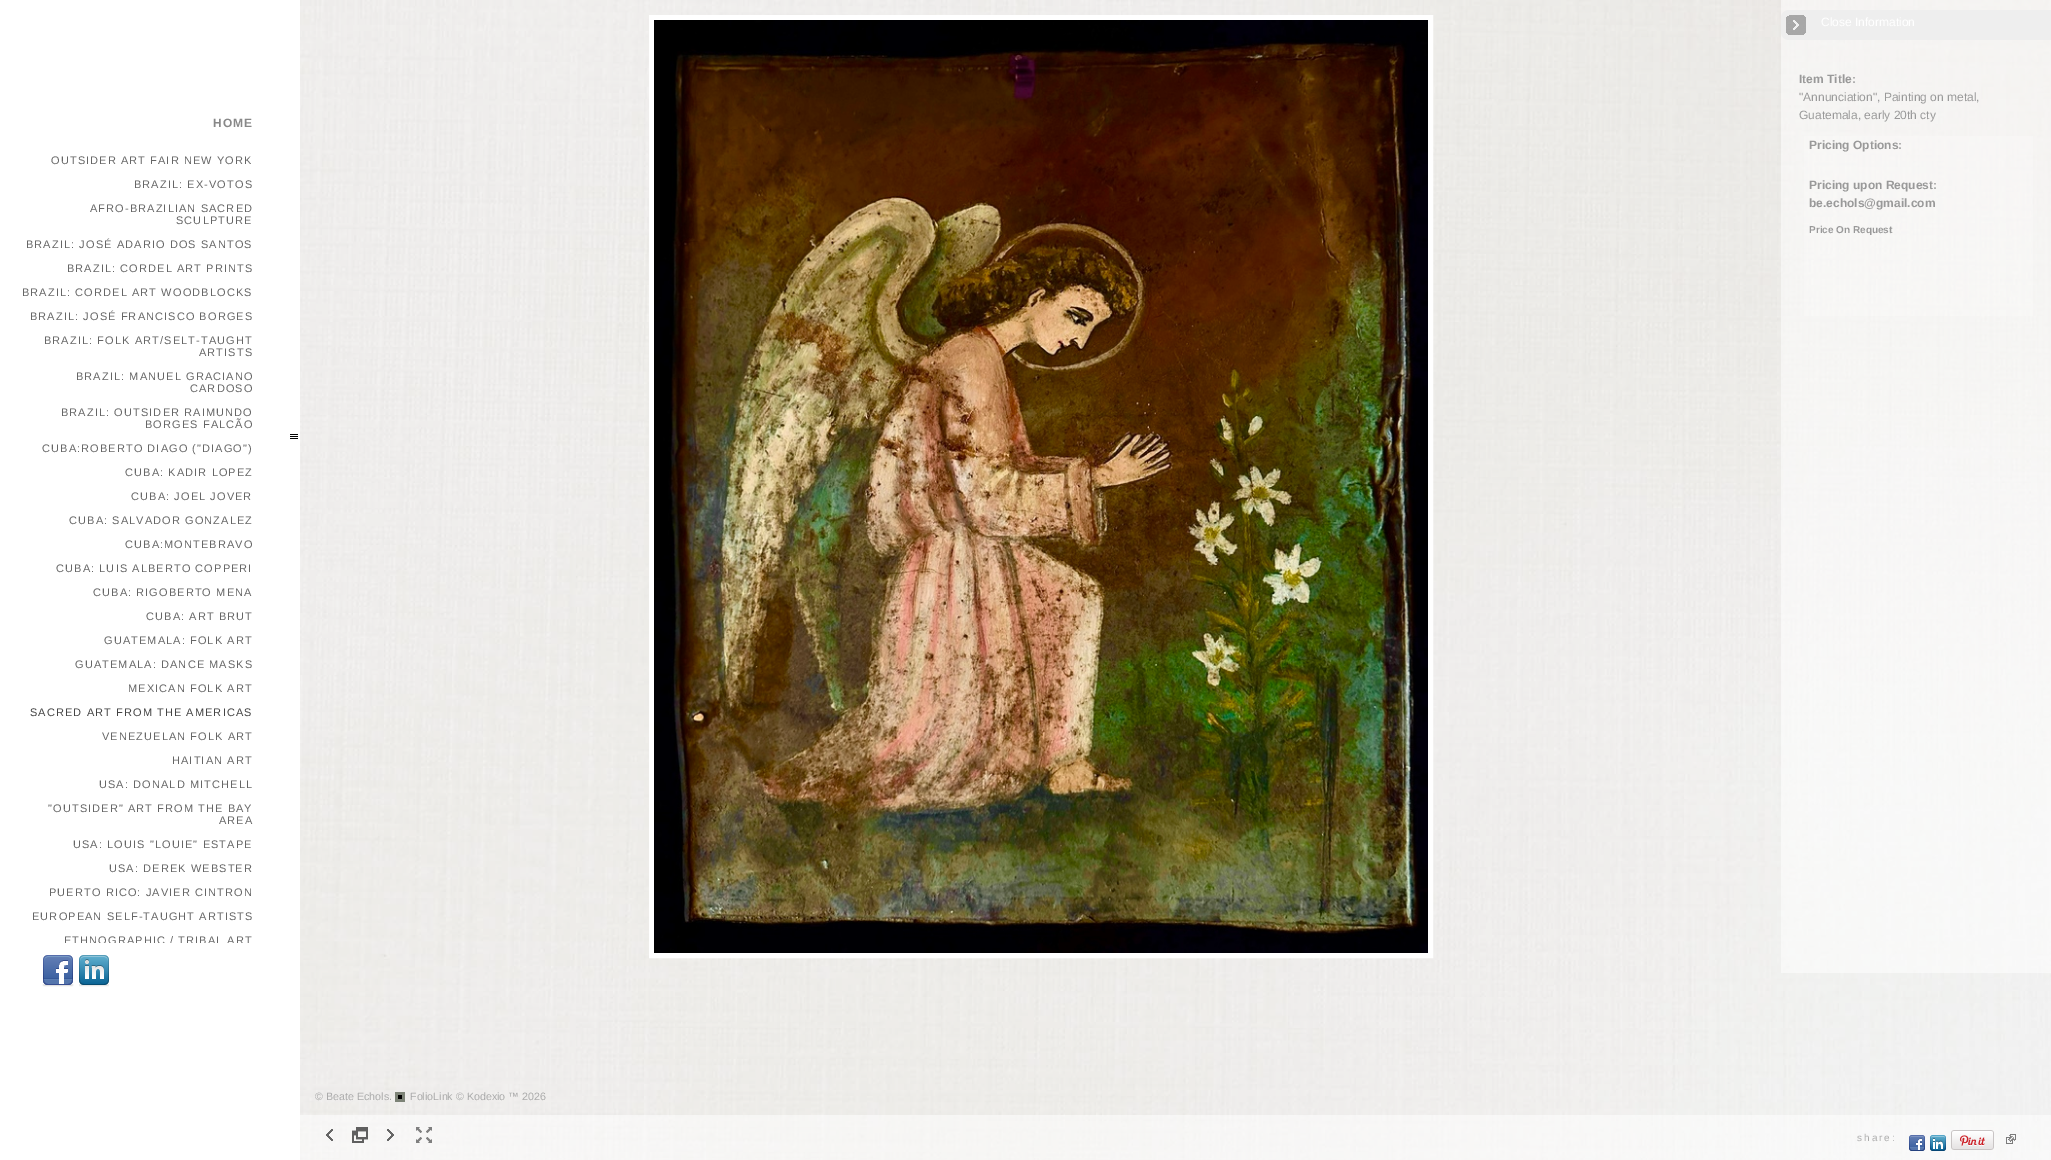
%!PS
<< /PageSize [2051 1160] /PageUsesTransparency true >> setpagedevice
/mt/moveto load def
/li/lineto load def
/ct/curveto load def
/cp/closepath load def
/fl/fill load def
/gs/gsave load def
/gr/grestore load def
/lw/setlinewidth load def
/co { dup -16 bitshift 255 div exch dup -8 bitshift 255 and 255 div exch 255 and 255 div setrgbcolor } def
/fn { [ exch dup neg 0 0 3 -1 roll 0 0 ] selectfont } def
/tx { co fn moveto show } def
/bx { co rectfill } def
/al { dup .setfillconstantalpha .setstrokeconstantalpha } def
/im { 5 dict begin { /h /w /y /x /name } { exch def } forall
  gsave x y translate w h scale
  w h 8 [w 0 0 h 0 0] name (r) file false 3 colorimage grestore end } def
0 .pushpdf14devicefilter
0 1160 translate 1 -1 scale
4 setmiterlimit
0 0 2051 1160 16#EEEEEE bx
(media/1.raw) 0 0 2051 1160 im
0.99 al
0 0 300 1160 16#FFFFFF bx
1 al
(media/2.raw) 290 434 8 5 im
(media/3.raw) 42 955 32 32 im
(media/4.raw) 79 955 30 32 im
5 lw
651.5 17.5 779 938 rectstroke
(media/5.raw) 654 20 774 933 im
0.5 al
1781 0 270 973 16#FFFFFF bx
1 al
16#EEEEEE co
1789 10 mt 2051 10 li 2051 40 li 1789 40 li 1784.5 40 1781 36.5 1781 32 ct 1781 18 li 1781 13.5 1784.5 10 1789 10 ct cp fl
(media/6.raw) 1786 15 20 20 im
0.2 al
1804 136 229 180 16#FFFFFF bx
1 al
(media/7.raw) 395 1092 10 10 im
0.5 al
300 1115 1751 45 16#FFFFFF bx
1 al
(media/8.raw) 326 1129 7 12 im
(media/9.raw) 352 1127 16 16 im
(media/10.raw) 352 1130 16 10 im
(media/11.raw) 387 1129 7 12 im
(media/12.raw) 416 1127 16 16 im
(media/13.raw) 1909 1135 16 16 im
(media/14.raw) 1930 1135 16 16 im
(media/15.raw) 1951 1130 43 20 im
(media/16.raw) 2006 1134 10 10 im
/LiberationSans-Bold 12 fn
16#888888 co
213 127 mt 1.1 0 (HOME) ashow
/LiberationSans-Regular 11 fn
16#666666 co
51 164 mt 1.1 0 (OUTSIDER ART FAIR NEW YORK) ashow
134 188 mt 1.1 0 (BRAZIL: EX-VOTOS) ashow
90 212 mt 1.1 0 (AFRO-BRAZILIAN SACRED) ashow
176 224 mt 1.1 0 (SCULPTURE) ashow
26 248 mt 1.1 0 (BRAZIL: JOSÉ ADARIO DOS SANTOS) ashow
67 272 mt 1.1 0 (BRAZIL: CORDEL ART PRINTS) ashow
22 296 mt 1.1 0 (BRAZIL: CORDEL ART WOODBLOCKS) ashow
30 320 mt 1.1 0 (BRAZIL: JOSÉ FRANCISCO BORGES) ashow
44 344 mt 1.1 0 (BRAZIL: FOLK ART/SELT-TAUGHT) ashow
199 356 mt 1.1 0 (ARTISTS) ashow
76 380 mt 1.1 0 (BRAZIL: MANUEL GRACIANO) ashow
190 392 mt 1.1 0 (CARDOSO) ashow
61 416 mt 1.1 0 (BRAZIL: OUTSIDER RAIMUNDO) ashow
145 428 mt 1.1 0 (BORGES FALCÃO) ashow
42 452 mt 1.1 0 (CUBA:ROBERTO DIAGO \("DIAGO"\)) ashow
125 476 mt 1.1 0 (CUBA: KADIR LOPEZ) ashow
131 500 mt 1.1 0 (CUBA: JOEL JOVER) ashow
69 524 mt 1.1 0 (CUBA: SALVADOR GONZALEZ) ashow
125 548 mt 1.1 0 (CUBA:MONTEBRAVO) ashow
56 572 mt 1.1 0 (CUBA: LUIS ALBERTO COPPERI) ashow
93 596 mt 1.1 0 (CUBA: RIGOBERTO MENA) ashow
146 620 mt 1.1 0 (CUBA: ART BRUT) ashow
104 644 mt 1.1 0 (GUATEMALA: FOLK ART) ashow
75 668 mt 1.1 0 (GUATEMALA: DANCE MASKS) ashow
128 692 mt 1.1 0 (MEXICAN FOLK ART) ashow
16#444444 co
30 716 mt 1.1 0 (SACRED ART FROM THE AMERICAS) ashow
16#666666 co
102 740 mt 1.1 0 (VENEZUELAN FOLK ART) ashow
172 764 mt 1.1 0 (HAITIAN ART) ashow
99 788 mt 1.1 0 (USA: DONALD MITCHELL) ashow
48 812 mt 1.1 0 ("OUTSIDER" ART FROM THE BAY) ashow
219 824 mt 1.1 0 (AREA) ashow
73 848 mt 1.1 0 (USA: LOUIS "LOUIE" ESTAPE) ashow
109 872 mt 1.1 0 (USA: DEREK WEBSTER) ashow
49 896 mt 1.1 0 (PUERTO RICO: JAVIER CINTRON) ashow
32 920 mt 1.1 0 (EUROPEAN SELF-TAUGHT ARTISTS) ashow
gs
0 70 300 873 rectclip
64 944 mt 1.1 0 (ETHNOGRAPHIC / TRIBAL ART) ashow
gr
(Close Information) 1821 26 /LiberationSans-Regular 12 16#FFFFFF tx
(Item Title:) 1799 83 /LiberationSans-Bold 12 16#999999 tx
("Annunciation", Painting on metal,) 1799 101 /LiberationSans-Regular 12 16#999999 tx
(Guatemala, early 20th cty) 1799 119 /LiberationSans-Regular 12 16#999999 tx
(Pricing Options:) 1809 149 /LiberationSans-Bold 12 16#999999 tx
(Pricing upon Request:) 1809 189 /LiberationSans-Bold 12 16#999999 tx
(be.echols@gmail.com) 1809 207 /LiberationSans-Bold 12 16#999999 tx
(Price On Request) 1809 233 /LiberationSans-Bold 10 16#999999 tx
(© Beate Echols.) 315 1100 /LiberationSans-Regular 10.7 16#AAAAAA tx
(FolioLink © Kodexio ™ 2026) 410 1100 /LiberationSans-Regular 10.7 16#AAAAAA tx
/LiberationSans-Regular 10 fn
1857 1141 mt 2 0 (share:) ashow
.poppdf14devicefilter showpage
